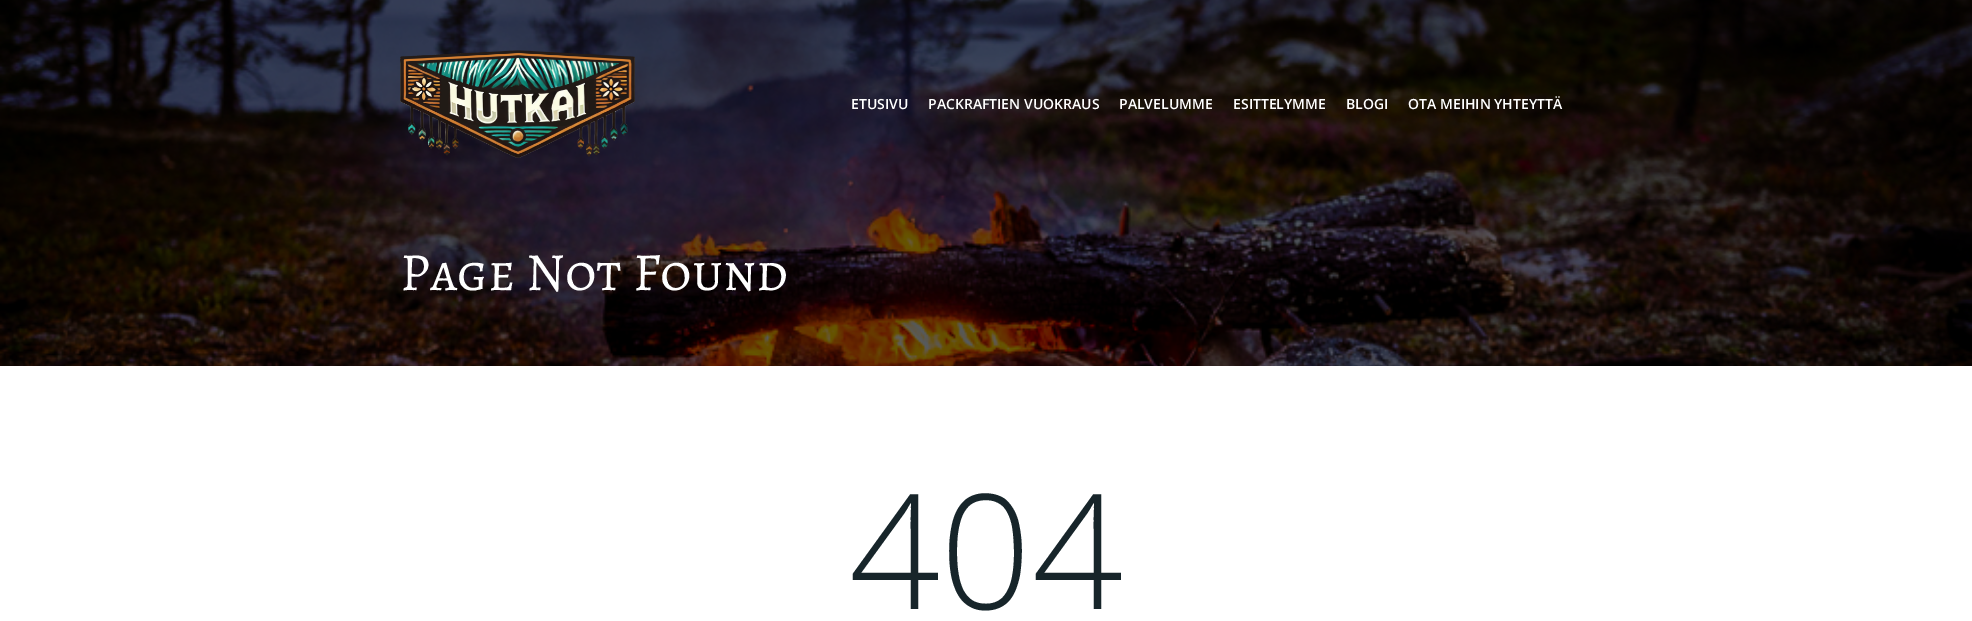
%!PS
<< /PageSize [1972 621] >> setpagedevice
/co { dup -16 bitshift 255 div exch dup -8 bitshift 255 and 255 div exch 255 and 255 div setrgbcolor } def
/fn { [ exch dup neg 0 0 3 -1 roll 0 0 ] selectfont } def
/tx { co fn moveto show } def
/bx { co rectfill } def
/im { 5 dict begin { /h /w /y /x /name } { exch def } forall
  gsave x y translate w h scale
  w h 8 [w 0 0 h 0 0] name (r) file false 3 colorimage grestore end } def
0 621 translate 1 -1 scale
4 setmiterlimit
0 0 1972 621 16#FFFFFF bx
(media/2.raw) 0 0 1972 366 im
(media/1.raw) 400 50 235 108 im
(ETUSIVU) 851 109 /OpenSans-SemiBold 14 16#FFFFFF tx
(PACKRAFTIEN VUOKRAUS) 928 109 /OpenSans-SemiBold 14 16#FFFFFF tx
(PALVELUMME) 1119 109 /OpenSans-SemiBold 14 16#FFFFFF tx
(ESITTELYMME) 1233 109 /OpenSans-SemiBold 14 16#FFFFFF tx
(BLOGI) 1346 109 /OpenSans-SemiBold 14 16#FFFFFF tx
(OTA MEIHIN YHTEYTTÄ) 1408 109 /OpenSans-SemiBold 14 16#FFFFFF tx
(Page Not Found) 400 290 /AlegreyaSC-Regular 54 16#FFFFFF tx
(404) 849 609 /OpenSans-Light 160 16#17252A tx
showpage
